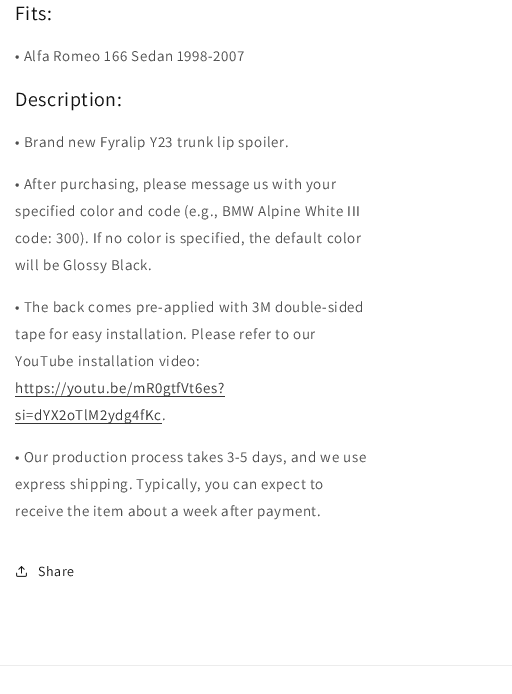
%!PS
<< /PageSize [512 694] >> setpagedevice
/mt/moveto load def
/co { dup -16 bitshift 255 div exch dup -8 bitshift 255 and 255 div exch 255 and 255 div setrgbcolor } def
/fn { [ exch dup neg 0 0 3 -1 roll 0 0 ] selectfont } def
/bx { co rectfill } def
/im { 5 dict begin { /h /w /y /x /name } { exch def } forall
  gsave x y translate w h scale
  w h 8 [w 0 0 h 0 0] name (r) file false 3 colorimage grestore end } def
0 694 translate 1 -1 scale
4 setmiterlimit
0 0 512 694 16#FFFFFF bx
15 396 210 1 16#363636 bx
15 423 147 1 16#363636 bx
(media/1.raw) 16 566 11 11 im
0 665 512 1 16#ECECEC bx
/Assistant-Regular 20 fn
16#121212 co
15 20 mt .6 0 (Fits:) ashow
/Assistant-Regular 15 fn
16#4D4D4D co
15 61 mt .6 0 (• Alfa Romeo 166 Sedan 1998-2007) ashow
/Assistant-Regular 20 fn
16#121212 co
15 106 mt .6 0 (Description:) ashow
/Assistant-Regular 15 fn
16#4D4D4D co
15 147 mt .6 0 (• Brand new Fyralip Y23 trunk lip spoiler.) ashow
15 189 mt .6 0 (• After purchasing, please message us with your) ashow
15 216 mt .6 0 (specified color and code \(e.g., BMW Alpine White III) ashow
15 243 mt .6 0 (code: 300\). If no color is specified, the default color) ashow
15 270 mt .6 0 (will be Glossy Black.) ashow
15 312 mt .6 0 (• The back comes pre-applied with 3M double-sided) ashow
15 339 mt .6 0 (tape for easy installation. Please refer to our) ashow
15 366 mt .6 0 (YouTube installation video:) ashow
16#353535 co
15 393 mt .6 0 (https://youtu.be/mR0gtfVt6es?) ashow
15 420 mt .6 0 (si=dYX2oTlM2ydg4fKc) ashow
16#4D4D4D co
162 420 mt .6 0 (.) ashow
15 462 mt .6 0 (• Our production process takes 3-5 days, and we use) ashow
15 489 mt .6 0 (express shipping. Typically, you can expect to) ashow
15 516 mt .6 0 (receive the item about a week after payment.) ashow
/Assistant-Regular 14 fn
16#121212 co
38 576 mt .6 0 (Share) ashow
showpage
